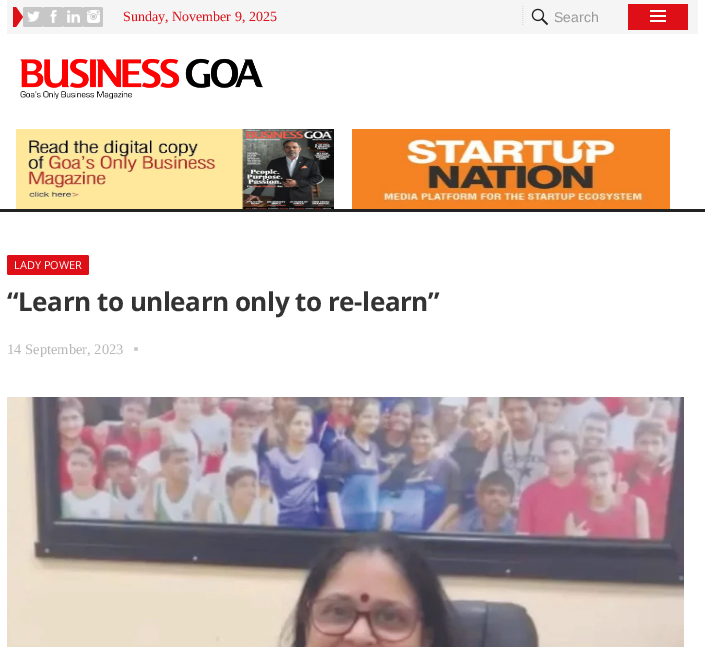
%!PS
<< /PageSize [705 647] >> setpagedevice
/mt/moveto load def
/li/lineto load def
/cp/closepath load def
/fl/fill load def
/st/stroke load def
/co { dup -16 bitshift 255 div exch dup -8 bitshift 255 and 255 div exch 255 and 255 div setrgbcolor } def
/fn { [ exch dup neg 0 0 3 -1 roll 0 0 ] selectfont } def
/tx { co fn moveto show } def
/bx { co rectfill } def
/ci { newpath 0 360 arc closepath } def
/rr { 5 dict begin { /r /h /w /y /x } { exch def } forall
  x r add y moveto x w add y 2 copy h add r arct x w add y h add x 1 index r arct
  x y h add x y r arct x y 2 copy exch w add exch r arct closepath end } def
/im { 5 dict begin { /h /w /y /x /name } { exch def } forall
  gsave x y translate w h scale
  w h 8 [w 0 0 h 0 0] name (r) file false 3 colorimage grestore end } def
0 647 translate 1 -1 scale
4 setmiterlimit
0 0 705 647 16#FFFFFF bx
0 209 705 3 16#222222 bx
7 0 691 34 16#F5F5F5 bx
16#C7C7C7 co
23 7 20 20 2 rr fl
(media/1.raw) 27 11 13 11 im
43 7 20 20 2 rr fl
(media/2.raw) 50 10 7 13 im
63 7 20 20 2 rr fl
(media/3.raw) 67 10 13 13 im
83 7 20 20 2 rr fl
(media/4.raw) 87 10 13 13 im
16#DE0F17 co
16 27 mt 16 7 li 23 17 li cp fl
13 7 3 20 16#DE0F17 bx
16#DDDDDD co
[1 1] 0 setdash
522.5 6 mt 522.5 26 li st
(media/5.raw) 531 8 18 18 im
628 4 60 26 16#DE0F17 bx
(media/6.raw) 650 10 16 12 im
(media/7.raw) 20 58 243 41 im
(media/8.raw) 16 129 318 80 im
(media/9.raw) 352 129 318 80 im
7 255 82 20 2 rr fl
16#CCCCCC co
136 349 2 ci fl
(media/10.raw) 7 397 677 250 im
(Sunday, November 9, 2025) 123 21 /LiberationSerif-Regular 14 16#DE0F17 tx
(Search) 554 22 /LiberationSans-Regular 14 16#999999 tx
(LADY POWER) 14 269 /OpenSans-Regular 11 16#FFFFFF tx
/OpenSans-Bold 26 fn
16#333333 co
7 311 mt -.45 0 (“Learn to unlearn only to re-learn”) ashow
(14 September, 2023) 7 354 /LiberationSerif-Regular 14.5 16#B7B7B7 tx
showpage
